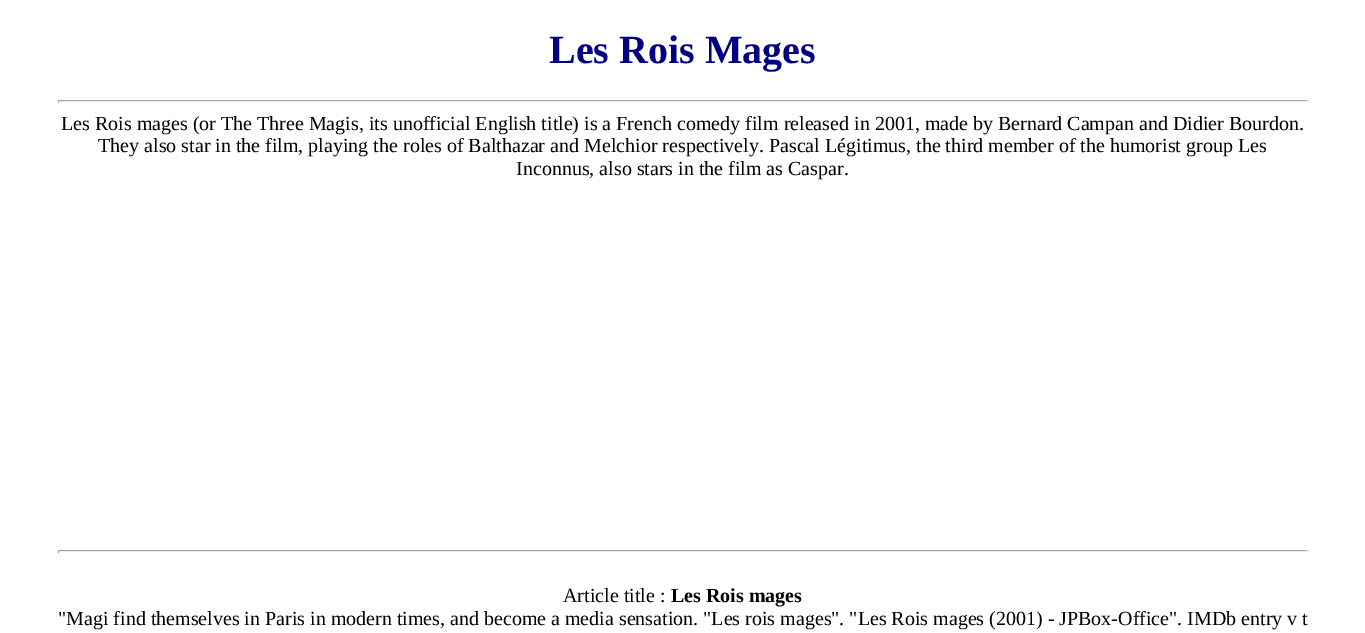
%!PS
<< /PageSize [1365 633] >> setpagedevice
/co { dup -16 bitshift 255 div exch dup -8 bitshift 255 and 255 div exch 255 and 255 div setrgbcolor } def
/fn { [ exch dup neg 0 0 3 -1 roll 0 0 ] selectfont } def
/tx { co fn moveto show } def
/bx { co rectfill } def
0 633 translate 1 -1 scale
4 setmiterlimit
0 0 1365 633 16#FFFFFF bx
58 100 1250 1 16#9F9F9F bx
1306 100 1 3 16#EEEEEE bx
58 101 1250 1 16#EEEEEE bx
58 100 1 3 16#9F9F9F bx
58 550 1250 1 16#9F9F9F bx
1306 550 1 3 16#EEEEEE bx
58 551 1250 1 16#EEEEEE bx
58 550 1 3 16#9F9F9F bx
(Les Rois Mages) 549 63 /LiberationSerif-Bold 40 16#000080 tx
(Les Rois mages \(or The Three Magis, its unofficial English title\) is a French comedy film released in 2001, made by Bernard Campan and Didier Bourdon.) 61 130 /LiberationSerif-Regular 20 16#000000 tx
(They also star in the film, playing the roles of Balthazar and Melchior respectively. Pascal Légitimus, the third member of the humorist group Les) 98 152 /LiberationSerif-Regular 20 16#000000 tx
(Inconnus, also stars in the film as Caspar.) 516 175 /LiberationSerif-Regular 20 16#000000 tx
(Article title :) 563 602 /LiberationSerif-Regular 20 16#000000 tx
(Les Rois mages) 671 602 /LiberationSerif-Bold 20 16#000000 tx
("Magi find themselves in Paris in modern times, and become a media sensation. "Les rois mages". "Les Rois mages \(2001\) - JPBox-Office". IMDb entry v t) 58 625 /LiberationSerif-Regular 20 16#000000 tx
showpage
